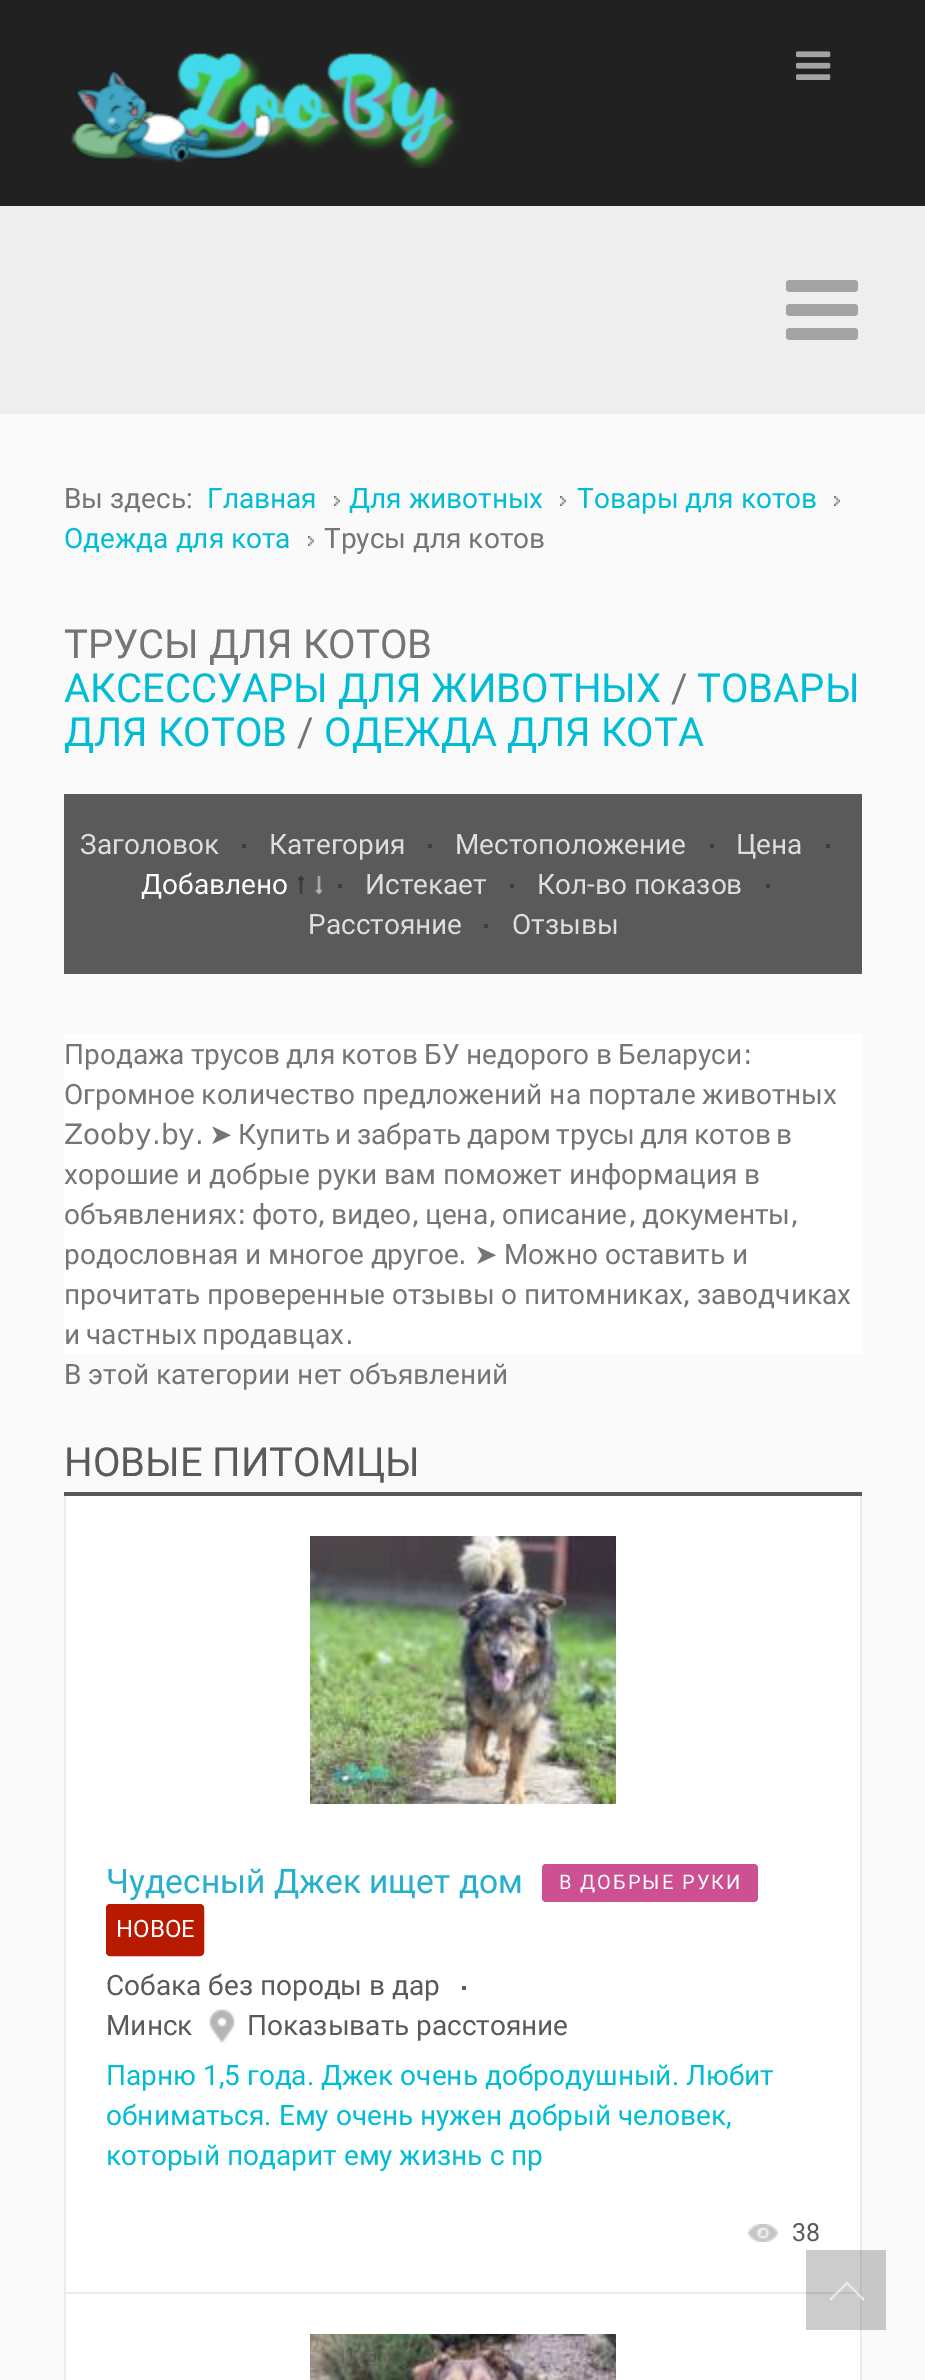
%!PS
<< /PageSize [925 2380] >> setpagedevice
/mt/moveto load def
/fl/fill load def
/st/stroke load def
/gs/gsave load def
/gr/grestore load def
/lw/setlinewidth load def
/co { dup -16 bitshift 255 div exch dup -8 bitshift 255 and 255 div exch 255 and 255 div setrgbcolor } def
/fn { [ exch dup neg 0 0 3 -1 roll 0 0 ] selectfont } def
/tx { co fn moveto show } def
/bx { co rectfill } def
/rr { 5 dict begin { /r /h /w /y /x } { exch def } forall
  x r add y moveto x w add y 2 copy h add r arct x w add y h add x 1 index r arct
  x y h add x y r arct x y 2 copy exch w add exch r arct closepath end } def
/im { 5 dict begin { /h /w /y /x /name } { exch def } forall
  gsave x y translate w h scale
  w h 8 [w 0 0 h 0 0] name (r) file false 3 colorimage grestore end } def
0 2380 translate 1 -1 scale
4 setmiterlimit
0 0 925 2380 16#FAFAFA bx
862 2250 24 80 16#C8C8C8 bx
0 0 925 206 16#212121 bx
(media/1.raw) 71 52 391 116 im
(media/2.raw) 796 51 35 29 im
0 206 925 208 16#EEEEEE bx
(media/3.raw) 786 280 72 60 im
(media/4.raw) 334 496 6 10 im
(media/4.raw) 560 496 6 10 im
(media/4.raw) 834 496 6 10 im
(media/4.raw) 308 536 6 10 im
64 794 798 180 16#5A5A5A bx
242 844 4 4 16#3E3E3E bx
428 844 4 4 16#3E3E3E bx
710 844 4 4 16#3E3E3E bx
826 844 4 4 16#3E3E3E bx
(media/5.raw) 298 876 24 18 im
338 884 4 4 16#3E3E3E bx
510 884 4 4 16#3E3E3E bx
766 884 4 4 16#3E3E3E bx
484 924 4 4 16#3E3E3E bx
64 1034 798 320 16#FFFFFF bx
64 1492 798 4 16#5A5A5A bx
66 1496 794 796 16#FFFFFF bx
806 2250 54 42 16#CCCCCC bx
860 1496 2 754 16#EBEBEB bx
860 2250 2 80 16#BCBCBC bx
64 2292 742 2 16#EBEBEB bx
806 2292 56 2 16#BCBCBC bx
64 1496 2 884 16#EBEBEB bx
(media/6.raw) 310 1536 306 268 im
16#CC5092 co
542 1864 216 38 4 rr fl
16#B81A00 co
107 1905 96 50 3 rr gs fl gr
2 lw
st
462 1986 4 4 16#5A5A5A bx
(media/7.raw) 209 2009 26 34 im
(media/8.raw) 748 2224 30 18 im
66 2294 794 86 16#FFFFFF bx
806 2294 54 36 16#CCCCCC bx
860 2330 2 50 16#EBEBEB bx
(media/9.raw) 310 2334 306 46 im
(media/10.raw) 830 2282 34 18 im
(Вы здесь:) 64 508 /Roboto-Regular 28 16#757575 tx
(Главная) 207 508 /Roboto-Regular 28 16#00BCD4 tx
(Для животных) 349 508 /Roboto-Regular 28 16#00BCD4 tx
(Товары для котов) 577 508 /Roboto-Regular 28 16#00BCD4 tx
(Одежда для кота) 64 548 /Roboto-Regular 28 16#00BCD4 tx
(Трусы для котов) 324 548 /Roboto-Regular 28 16#757575 tx
(ТРУСЫ ДЛЯ КОТОВ) 64 658 /Roboto-Regular 40 16#757575 tx
(АКСЕССУАРЫ ДЛЯ ЖИВОТНЫХ) 64 702 /Roboto-Regular 40 16#00BCD4 tx
(/) 671 702 /Roboto-Regular 40 16#757575 tx
(ТОВАРЫ) 697 702 /Roboto-Regular 40 16#00BCD4 tx
(ДЛЯ КОТОВ) 64 746 /Roboto-Regular 40 16#00BCD4 tx
(/) 297 746 /Roboto-Regular 40 16#757575 tx
(ОДЕЖДА ДЛЯ КОТА) 324 746 /Roboto-Regular 40 16#00BCD4 tx
(Заголовок) 80 854 /Roboto-Regular 28 16#DEDEDE tx
(Категория) 269 854 /Roboto-Regular 28 16#DEDEDE tx
(Местоположение) 455 854 /Roboto-Regular 28 16#DEDEDE tx
(Цена) 736 854 /Roboto-Regular 28 16#DEDEDE tx
(Добавлено) 141 894 /Roboto-Regular 28 16#FFFFFF tx
(Истекает) 365 894 /Roboto-Regular 28 16#DEDEDE tx
(Кол-во показов) 537 894 /Roboto-Regular 28 16#DEDEDE tx
(Расстояние) 308 934 /Roboto-Regular 28 16#DEDEDE tx
(Отзывы) 512 934 /Roboto-Regular 28 16#DEDEDE tx
16#757575 co
64 1064 mt -.5 0 32 (Продажа трусов для котов БУ недорого в Беларуси) widthshow
(:) 743 1064 /DejaVuSans-Regular 28 16#757575 tx
(Огромное количество предложений на портале животных) 64 1104 /Roboto-Regular 28 16#757575 tx
(Zooby.by.) 64 1144 /DejaVuSans-Regular 28 16#757575 tx
(➤) 209 1144 /DejaVuSans-Regular 28 16#757575 tx
/Roboto-Regular 28 fn
238 1144 mt -1.75 0 32 (Купить и забрать даром трусы для котов в) widthshow
(хорошие и добрые руки вам поможет информация в) 64 1184 /Roboto-Regular 28 16#757575 tx
(объявлениях) 64 1224 /Roboto-Regular 28 16#757575 tx
(:) 237 1224 /DejaVuSans-Regular 28 16#757575 tx
(фото) 252 1224 /Roboto-Regular 28 16#757575 tx
(,) 317 1224 /DejaVuSans-Regular 28 16#757575 tx
(видео) 331 1224 /Roboto-Regular 28 16#757575 tx
(,) 411 1224 /DejaVuSans-Regular 28 16#757575 tx
(цена) 425 1224 /Roboto-Regular 28 16#757575 tx
(,) 488 1224 /DejaVuSans-Regular 28 16#757575 tx
(описание) 502 1224 /Roboto-Regular 28 16#757575 tx
(,) 628 1224 /DejaVuSans-Regular 28 16#757575 tx
(документы) 642 1224 /Roboto-Regular 28 16#757575 tx
(,) 790 1224 /DejaVuSans-Regular 28 16#757575 tx
(родословная и многое другое) 64 1264 /Roboto-Regular 28 16#757575 tx
(.) 458 1264 /DejaVuSans-Regular 28 16#757575 tx
(➤) 474 1264 /DejaVuSans-Regular 28 16#757575 tx
(Можно оставить и) 504 1264 /Roboto-Regular 28 16#757575 tx
64 1304 mt -.5 0 32 (прочитать проверенные отзывы о питомниках) widthshow
(,) 682 1304 /DejaVuSans-Regular 28 16#757575 tx
(заводчиках) 697 1304 /Roboto-Regular 28 16#757575 tx
64 1344 mt -1 0 32 (и частных продавцах) widthshow
(.) 345 1344 /DejaVuSans-Regular 28 16#757575 tx
(В этой категории нет объявлений) 64 1384 /Roboto-Regular 28 16#757575 tx
(НОВЫЕ ПИТОМЦЫ) 64 1476 /Roboto-Regular 40 16#5A5A5A tx
(Чудесный Джек ищет дом) 106 1893 /Roboto-Regular 33.6 16#26B0CD tx
/Roboto-Regular 20 fn
16#FFFFFF co
559 1889 mt 2 0 (В ДОБРЫЕ РУКИ) ashow
(НОВОЕ) 116 1937 /Roboto-Regular 24 16#FFFFFF tx
(Собака без породы в дар) 106 1995 /Roboto-Regular 28 16#5A5A5A tx
(Минск) 106 2035 /Roboto-Regular 28 16#5A5A5A tx
(Показывать расстояние) 247 2035 /Roboto-Regular 28 16#5A5A5A tx
(Парню 1,5 года. Джек очень добродушный. Любит) 106 2085 /Roboto-Regular 28 16#00BCD4 tx
(обниматься. Ему очень нужен добрый человек,) 106 2125 /Roboto-Regular 28 16#00BCD4 tx
(который подарит ему жизнь с пр) 106 2165 /Roboto-Regular 28 16#00BCD4 tx
(38) 792 2241 /Roboto-Regular 25 16#5A5A5A tx
showpage
